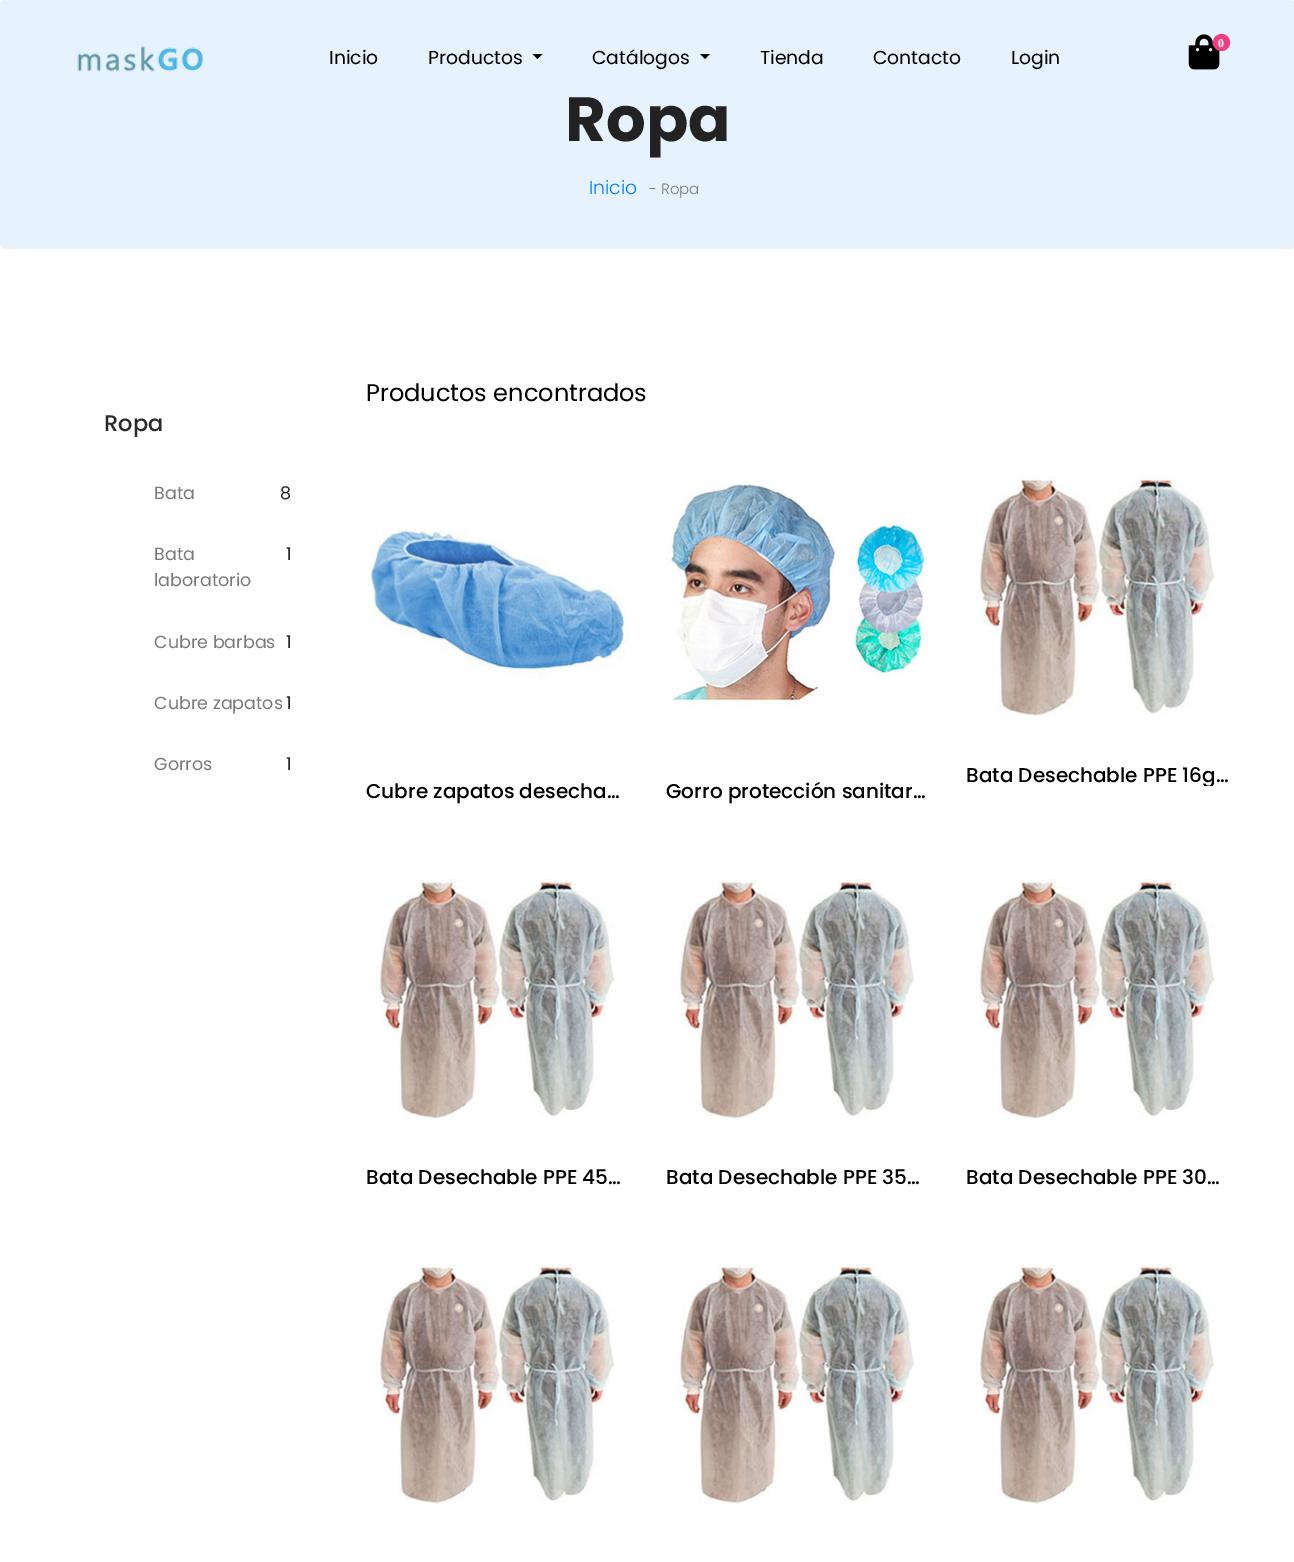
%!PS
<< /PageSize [1294 1562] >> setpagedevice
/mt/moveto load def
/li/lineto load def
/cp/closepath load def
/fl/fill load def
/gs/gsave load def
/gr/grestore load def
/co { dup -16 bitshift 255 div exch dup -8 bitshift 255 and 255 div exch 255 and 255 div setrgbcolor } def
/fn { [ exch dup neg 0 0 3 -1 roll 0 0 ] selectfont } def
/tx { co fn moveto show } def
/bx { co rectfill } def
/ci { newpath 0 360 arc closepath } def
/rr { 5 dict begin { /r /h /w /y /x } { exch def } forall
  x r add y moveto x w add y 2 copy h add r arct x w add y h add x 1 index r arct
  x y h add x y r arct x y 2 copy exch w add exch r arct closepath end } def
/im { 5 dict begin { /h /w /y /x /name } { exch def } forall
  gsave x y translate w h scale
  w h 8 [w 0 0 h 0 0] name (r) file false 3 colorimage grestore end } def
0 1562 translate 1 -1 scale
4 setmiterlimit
0 0 1294 1562 16#FFFFFF bx
16#E7F2FF co
0 0 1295 249 5 rr fl
(media/1.raw) 1188 34 32 36 im
16#F13D80 co
1221.5 42.5 8.5 ci fl
(media/2.raw) 77 46 126 26 im
16#000000 co
532.5 54 mt 542.5 54 li 537.5 59 li cp fl
700 54 mt 710 54 li 705 59 li cp fl
(media/3.raw) 974 476 241 240 im
(media/4.raw) 368 526 261 153 im
(media/5.raw) 666 484 263 223 im
(media/6.raw) 374 878 241 241 im
(media/7.raw) 674 878 241 241 im
(media/8.raw) 974 878 241 241 im
(media/6.raw) 374 1263 241 241 im
(media/7.raw) 674 1263 241 241 im
(media/8.raw) 974 1263 241 241 im
(0) 1218 47 /LiberationSerif-Bold 12 16#FFFFFF tx
(Inicio) 329 64 /Poppins-Regular 18.75 16#000000 tx
(Productos) 428 64 /Poppins-Regular 18.75 16#000000 tx
(Catálogos) 592 64 /Poppins-Regular 18.75 16#000000 tx
(Tienda) 760 64 /Poppins-Regular 18.75 16#000000 tx
(Contacto) 873 64 /Poppins-Regular 18.75 16#000000 tx
(Login) 1011 64 /Poppins-Regular 18.75 16#000000 tx
(Ropa) 565 141 /Poppins-Bold 62.5 16#222222 tx
(Inicio) 589 194 /Poppins-Light 18.75 16#007BFF tx
(- Ropa) 649 194 /Poppins-Light 15 16#797979 tx
(Ropa) 104 431 /Poppins-Medium 22.5 16#2A2A2A tx
(Bata) 154 499 /Poppins-Regular 17.5 16#797979 tx
(8) 280 499 /Poppins-Regular 17.5 16#212529 tx
(Bata) 154 560 /Poppins-Regular 17.5 16#797979 tx
(laboratorio) 154 586 /Poppins-Regular 17.5 16#797979 tx
(1) 286 560 /Poppins-Regular 17.5 16#212529 tx
(Cubre barbas) 154 648 /Poppins-Regular 17.5 16#797979 tx
(1) 286 648 /Poppins-Regular 17.5 16#212529 tx
(Cubre zapatos) 154 709 /Poppins-Regular 17.5 16#797979 tx
(1) 286 709 /Poppins-Regular 17.5 16#212529 tx
(Gorros) 154 770 /Poppins-Regular 17.5 16#797979 tx
(1) 286 770 /Poppins-Regular 17.5 16#212529 tx
(Productos encontrados) 366 401 /Poppins-Regular 24 16#000000 tx
gs
966 763 263 23 rectclip
(Bata Desechable PPE 16g…) 966 782 /Poppins-Medium 20 16#000000 tx
gr
(Cubre zapatos desecha…) 366 798 /Poppins-Medium 20 16#000000 tx
(Gorro protección sanitar…) 666 798 /Poppins-Medium 20 16#000000 tx
(Bata Desechable PPE 45…) 366 1184 /Poppins-Medium 20 16#000000 tx
(Bata Desechable PPE 35…) 666 1184 /Poppins-Medium 20 16#000000 tx
(Bata Desechable PPE 30…) 966 1184 /Poppins-Medium 20 16#000000 tx
showpage
